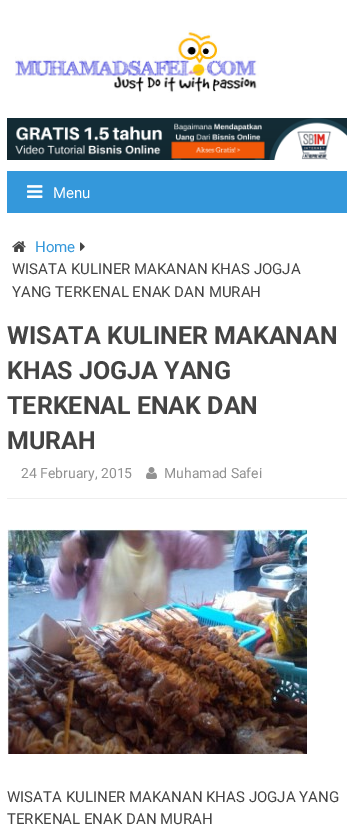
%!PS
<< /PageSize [354 828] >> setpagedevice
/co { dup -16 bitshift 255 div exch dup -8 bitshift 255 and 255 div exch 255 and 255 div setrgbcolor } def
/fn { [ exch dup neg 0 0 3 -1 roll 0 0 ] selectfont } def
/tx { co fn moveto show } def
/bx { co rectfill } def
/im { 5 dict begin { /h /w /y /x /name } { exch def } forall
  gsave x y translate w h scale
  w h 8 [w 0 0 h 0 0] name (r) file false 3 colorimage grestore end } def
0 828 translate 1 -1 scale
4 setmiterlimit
0 0 354 828 16#FFFFFF bx
(media/1.raw) 15 30 244 63 im
(media/2.raw) 7 118 340 42 im
7 171 340 42 16#3498DB bx
(media/3.raw) 27 185 16 13 im
(media/4.raw) 12 241 14 11 im
(media/5.raw) 80 242 5 9 im
7 498 340 1 16#EEEEEE bx
(media/6.raw) 146 467 11 12 im
(media/7.raw) 7 529 300 225 im
(Menu) 53 198 /Roboto-Regular 15 16#FFFFFF tx
(Home) 35 252 /Roboto-Regular 15 16#3498DB tx
(WISATA KULINER MAKANAN KHAS JOGJA) 12 274 /Roboto-Regular 15 16#444444 tx
(YANG TERKENAL ENAK DAN MURAH) 12 297 /Roboto-Regular 15 16#444444 tx
(WISATA KULINER MAKANAN) 7 344 /Roboto-Bold 25 16#444444 tx
(KHAS JOGJA YANG) 7 379 /Roboto-Bold 25 16#444444 tx
(TERKENAL ENAK DAN) 7 414 /Roboto-Bold 25 16#444444 tx
(MURAH) 7 449 /Roboto-Bold 25 16#444444 tx
(24 February, 2015) 21 478 /Roboto-Regular 14 16#919191 tx
(Muhamad Safei) 164 478 /Roboto-Regular 14 16#919191 tx
(WISATA KULINER MAKANAN KHAS JOGJA YANG) 7 802 /Roboto-Regular 15 16#444444 tx
(TERKENAL ENAK DAN MURAH) 7 824 /Roboto-Regular 15 16#444444 tx
showpage
